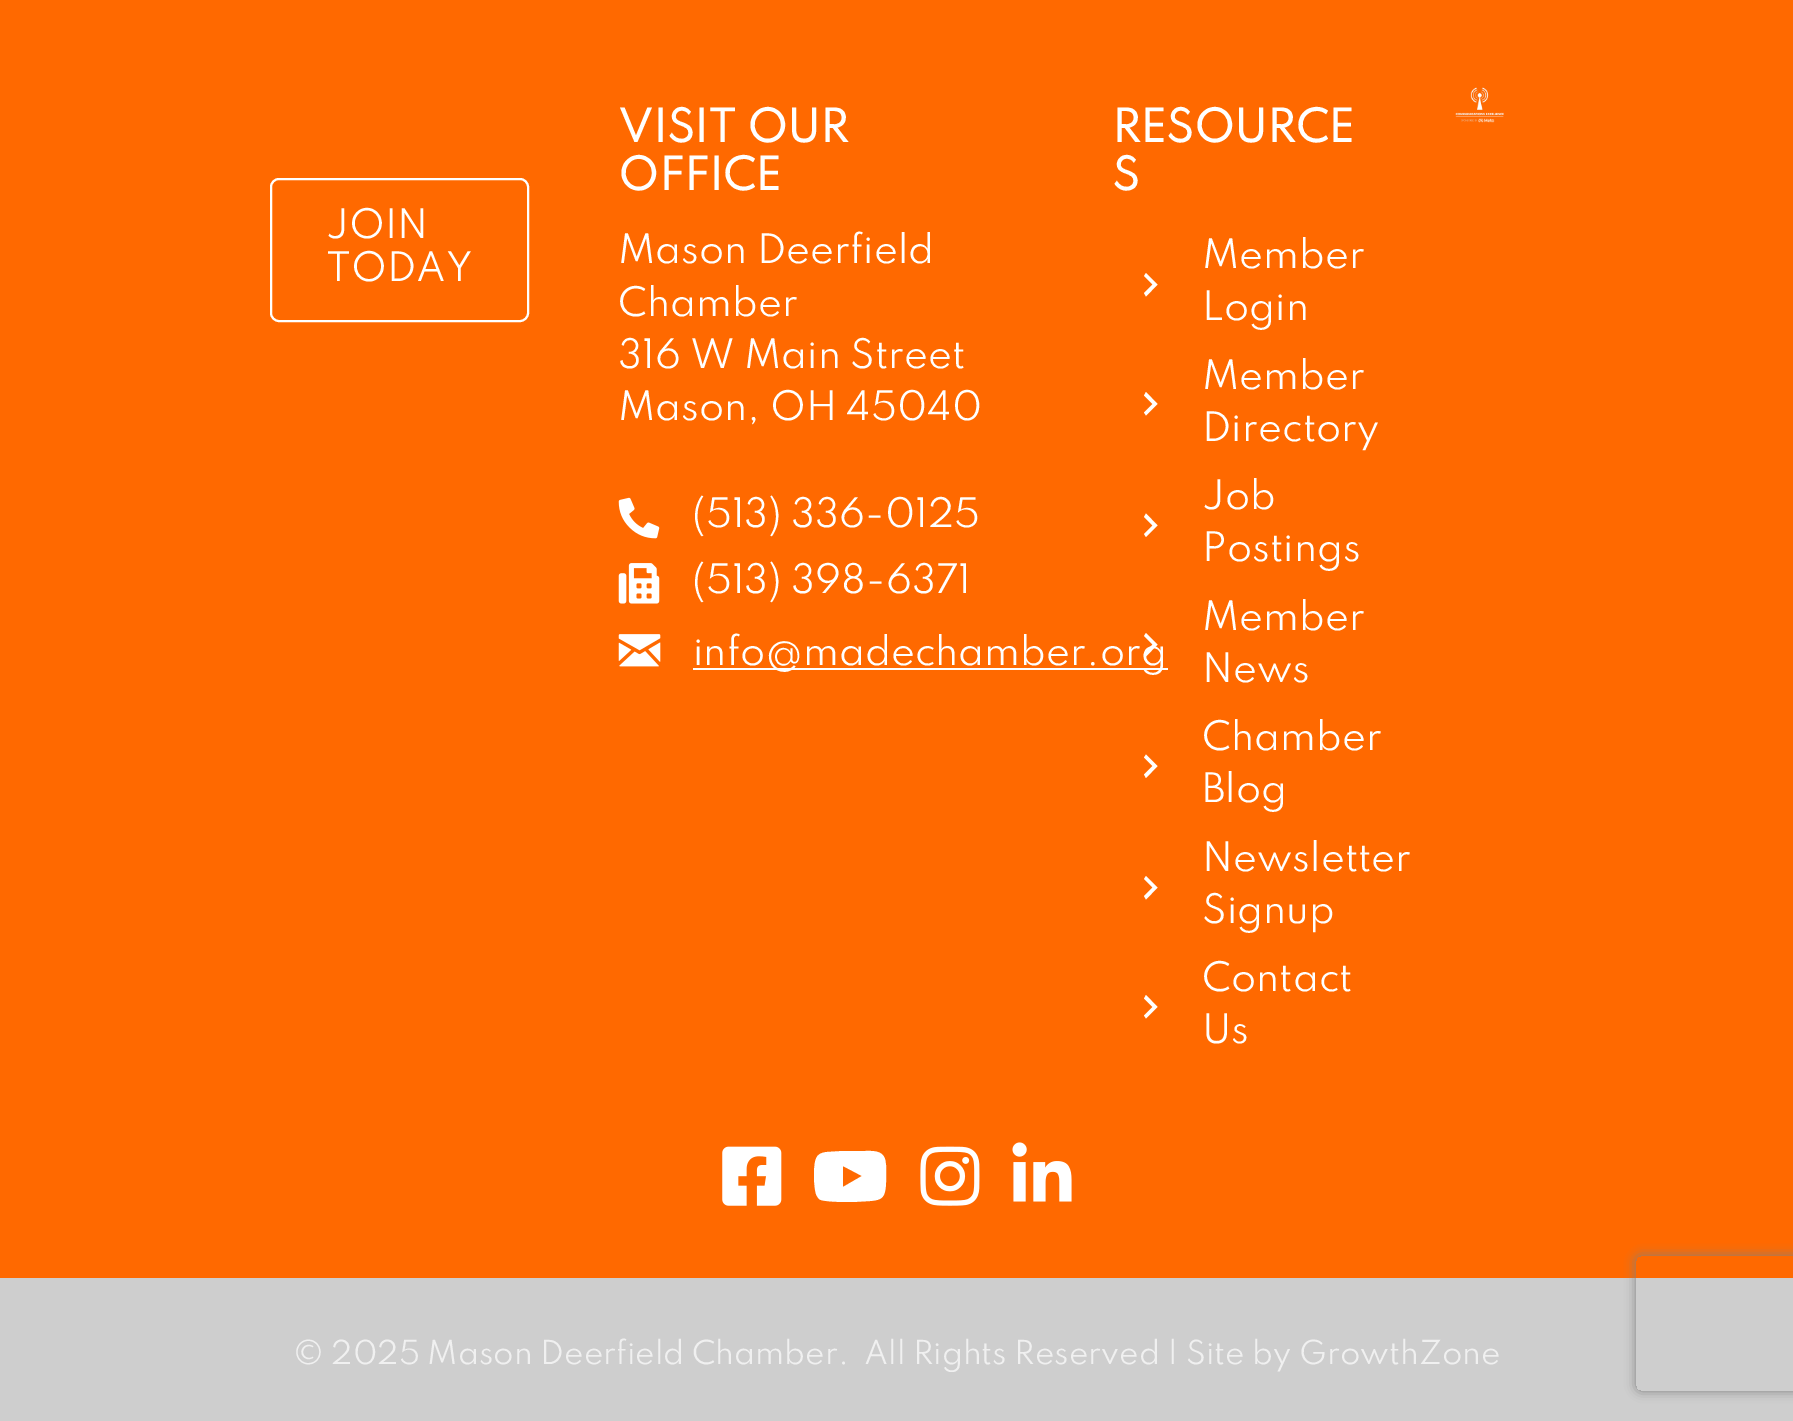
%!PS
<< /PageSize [1793 1421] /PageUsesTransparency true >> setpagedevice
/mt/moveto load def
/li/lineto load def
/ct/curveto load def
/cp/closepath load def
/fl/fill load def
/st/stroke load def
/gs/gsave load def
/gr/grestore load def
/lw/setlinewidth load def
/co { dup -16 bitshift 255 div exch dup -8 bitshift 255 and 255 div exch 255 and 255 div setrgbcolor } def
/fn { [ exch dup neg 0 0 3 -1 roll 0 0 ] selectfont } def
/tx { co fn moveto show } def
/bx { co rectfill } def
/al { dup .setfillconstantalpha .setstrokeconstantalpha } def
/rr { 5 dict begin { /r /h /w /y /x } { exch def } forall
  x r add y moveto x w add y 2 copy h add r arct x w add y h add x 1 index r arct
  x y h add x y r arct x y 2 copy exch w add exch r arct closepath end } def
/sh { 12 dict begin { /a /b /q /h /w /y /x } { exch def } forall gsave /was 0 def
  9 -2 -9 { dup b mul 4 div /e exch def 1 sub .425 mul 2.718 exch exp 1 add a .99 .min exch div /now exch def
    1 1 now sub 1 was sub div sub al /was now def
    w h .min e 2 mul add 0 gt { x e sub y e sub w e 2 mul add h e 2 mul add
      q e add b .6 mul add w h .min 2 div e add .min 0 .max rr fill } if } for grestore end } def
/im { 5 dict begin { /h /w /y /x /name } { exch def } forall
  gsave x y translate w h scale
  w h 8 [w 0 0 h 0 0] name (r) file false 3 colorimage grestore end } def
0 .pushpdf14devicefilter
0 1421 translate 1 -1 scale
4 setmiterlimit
0 0 1793 1421 16#FF6900 bx
16#FFFFFF co
2 lw
271 179 257 142 8 rr st
(media/1.raw) 618 497 42 42 im
(media/2.raw) 618 563 42 41 im
(media/3.raw) 618 634 43 33 im
693 668 475 2 16#FFFFFF bx
1144 293 mt 1152.5 284.5 li 1144 276 li 1146 273 li 1157.5 284.5 li 1146 296.5 li cp fl
1144 412.5 mt 1152.5 404 li 1144 395.5 li 1146 392 li 1157.5 404 li 1146 415.5 li cp fl
1144 534 mt 1152.5 525.5 li 1144 517 li 1146 513.5 li 1157.5 525.5 li 1146 537 li cp fl
1144 653 mt 1152.5 644.5 li 1144 636 li 1146 633 li 1157.5 644.5 li 1146 656.5 li cp fl
1144 774.5 mt 1152.5 766 li 1144 757.5 li 1146 754.5 li 1157.5 766 li 1146 778 li cp fl
1144 896 mt 1152.5 887.5 li 1144 879 li 1146 876 li 1157.5 887.5 li 1146 899.5 li cp fl
1144 1015.5 mt 1152.5 1007 li 1144 998.5 li 1146 995 li 1157.5 1007 li 1146 1018.5 li cp fl
(media/4.raw) 1455 87 49 36 im
(media/5.raw) 722 1146 60 60 im
885 1159 mt 887 1167 886 1176 886 1184 ct 885 1197 883 1200 870 1201 ct 853 1202 li 845 1202 828 1202 821 1200 ct 818 1199 817 1196 816 1194 ct 814 1187 814 1178 814 1171 ct 815 1160 815 1153 827 1152 ct 843 1151 li 865 1151 li 872 1151 882 1150 885 1159 ct cp 843 1187 mt 862 1176 li 843 1166 li cp fl
(media/6.raw) 920 1146 60 60 im
(media/7.raw) 1012 1142 60 60 im
0 1278 1793 143 16#CECECE bx
gs
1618 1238 mt 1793 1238 li 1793 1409 li 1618 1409 li cp 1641 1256 mt 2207 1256 li 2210 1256 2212 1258 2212 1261 ct 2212 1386 li 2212 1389 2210 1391 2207 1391 ct 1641 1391 li 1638 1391 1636 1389 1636 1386 ct 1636 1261 li 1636 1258 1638 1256 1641 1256 ct cp eoclip newpath
16#808080 co
1636 1256 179 135 5 5.5 1 sh
gr
(JOIN) 326 238 /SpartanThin-Thin 36 16#FFFFFF tx
(TODAY) 326 281 /SpartanThin-Thin 36 16#FFFFFF tx
(VISIT OUR) 618 142 /SpartanThin-Bold 40.5 16#FFFFFF tx
(OFFICE) 618 190 /SpartanThin-Bold 40.5 16#FFFFFF tx
(Mason Deerfield) 618 263 /SpartanThin-Thin 36 16#FFFFFF tx
(Chamber) 618 316 /SpartanThin-Thin 36 16#FFFFFF tx
(316 W Main Street) 618 368 /SpartanThin-Thin 36 16#FFFFFF tx
(Mason, OH 45040) 618 420 /SpartanThin-Thin 36 16#FFFFFF tx
(\(513\) 336-0125) 692 527 /SpartanThin-Thin 36 16#FFFFFF tx
(\(513\) 398-6371) 692 593 /SpartanThin-Thin 36 16#FFFFFF tx
(info@madechamber.org) 693 665 /SpartanThin-Thin 36 16#FFFFFF tx
(RESOURCE) 1112 142 /SpartanThin-Bold 40.5 16#FFFFFF tx
(S) 1112 190 /SpartanThin-Bold 40.5 16#FFFFFF tx
(Member) 1202 268 /SpartanThin-Thin 36 16#FFFFFF tx
(Login) 1202 320 /SpartanThin-Thin 36 16#FFFFFF tx
(Member) 1202 389 /SpartanThin-Thin 36 16#FFFFFF tx
(Directory) 1202 441 /SpartanThin-Thin 36 16#FFFFFF tx
(Job) 1202 509 /SpartanThin-Thin 36 16#FFFFFF tx
(Postings) 1202 561 /SpartanThin-Thin 36 16#FFFFFF tx
(Member) 1202 630 /SpartanThin-Thin 36 16#FFFFFF tx
(News) 1202 682 /SpartanThin-Thin 36 16#FFFFFF tx
(Chamber) 1202 750 /SpartanThin-Thin 36 16#FFFFFF tx
(Blog) 1202 802 /SpartanThin-Thin 36 16#FFFFFF tx
(Newsletter) 1202 871 /SpartanThin-Thin 36 16#FFFFFF tx
(Signup) 1202 923 /SpartanThin-Thin 36 16#FFFFFF tx
(Contact) 1202 991 /SpartanThin-Thin 36 16#FFFFFF tx
(Us) 1202 1043 /SpartanThin-Thin 36 16#FFFFFF tx
(© 2025 Mason Deerfield Chamber.) 293 1364 /SpartanThin-Thin 29.25 16#F0F0F0 tx
(All Rights Reserved | Site by GrowthZone) 864 1364 /SpartanThin-Thin 29.25 16#F0F0F0 tx
.poppdf14devicefilter showpage
